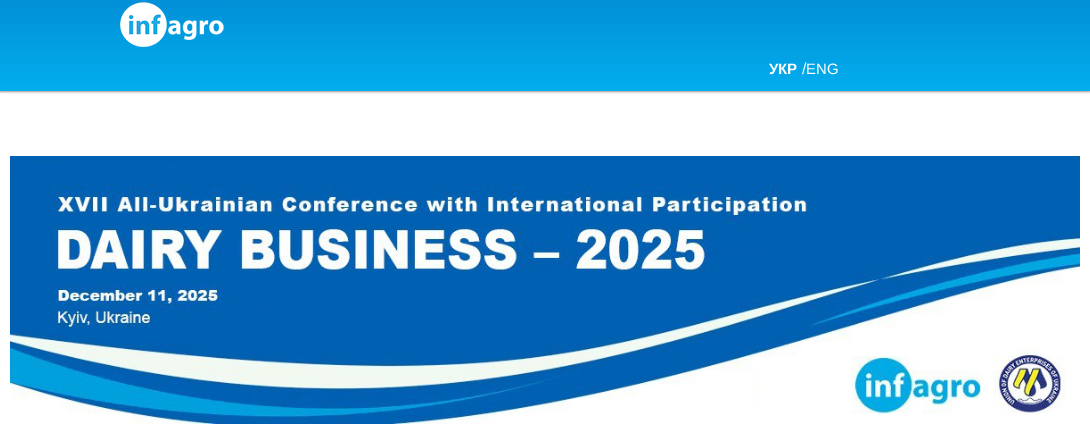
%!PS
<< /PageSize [1090 430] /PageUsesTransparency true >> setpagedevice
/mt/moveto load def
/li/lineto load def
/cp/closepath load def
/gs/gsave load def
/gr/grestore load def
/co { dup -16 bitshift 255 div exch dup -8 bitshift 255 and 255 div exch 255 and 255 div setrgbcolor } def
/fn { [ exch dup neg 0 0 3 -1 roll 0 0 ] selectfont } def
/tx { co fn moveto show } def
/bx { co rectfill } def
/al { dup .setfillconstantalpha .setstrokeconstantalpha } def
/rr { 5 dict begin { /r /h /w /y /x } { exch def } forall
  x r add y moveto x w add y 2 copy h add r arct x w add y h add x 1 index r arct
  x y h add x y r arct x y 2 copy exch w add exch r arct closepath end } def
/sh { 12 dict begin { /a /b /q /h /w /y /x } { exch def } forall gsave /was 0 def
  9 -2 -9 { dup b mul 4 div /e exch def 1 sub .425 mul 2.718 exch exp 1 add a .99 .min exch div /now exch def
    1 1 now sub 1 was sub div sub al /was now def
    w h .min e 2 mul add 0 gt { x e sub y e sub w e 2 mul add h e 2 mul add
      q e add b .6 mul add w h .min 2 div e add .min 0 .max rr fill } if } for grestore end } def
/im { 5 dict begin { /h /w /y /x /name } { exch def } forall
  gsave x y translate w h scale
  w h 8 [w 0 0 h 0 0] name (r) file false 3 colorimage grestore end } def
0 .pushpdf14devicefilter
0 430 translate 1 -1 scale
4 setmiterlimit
0 0 1090 430 16#FFFFFF bx
16#323232 co
0 1 1090 91 0 1 .52 sh
gs 0 0 mt 1090 0 li 1090 91 li 0 91 li cp clip newpath
<< /ShadingType 2 /ColorSpace /DeviceRGB /Coords [545 0 545 91] /Extend [true true] /Function << /FunctionType 2 /Domain [0 1] /C0 [.008 .565 .843] /C1 [.012 .682 .933] /N 1 >> >> shfill gr
(media/1.raw) 120 2 104 45 im
(media/2.raw) 10 156 1070 268 im
(УКР) 769 74 /LiberationSans-Bold 15 16#FFFFFF tx
(/) 802 74 /LiberationSans-Regular 16 16#FFFFFF tx
(ENG) 806 74 /LiberationSans-Regular 15 16#FFFFFF tx
.poppdf14devicefilter showpage
